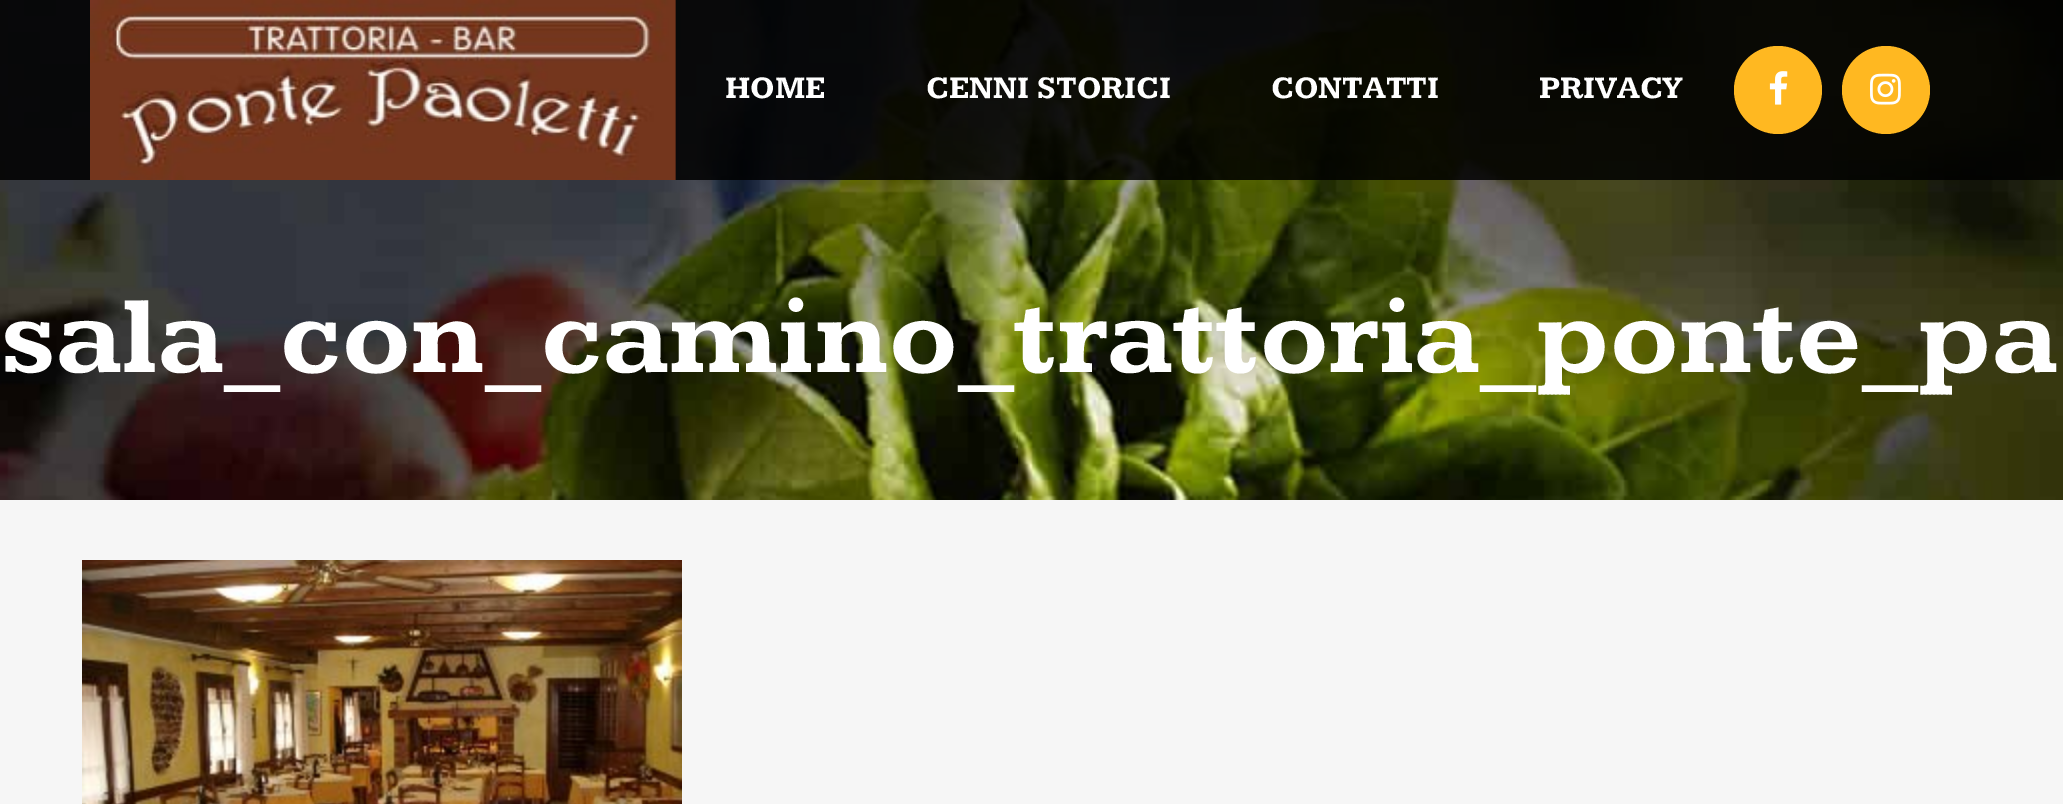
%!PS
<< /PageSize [2063 804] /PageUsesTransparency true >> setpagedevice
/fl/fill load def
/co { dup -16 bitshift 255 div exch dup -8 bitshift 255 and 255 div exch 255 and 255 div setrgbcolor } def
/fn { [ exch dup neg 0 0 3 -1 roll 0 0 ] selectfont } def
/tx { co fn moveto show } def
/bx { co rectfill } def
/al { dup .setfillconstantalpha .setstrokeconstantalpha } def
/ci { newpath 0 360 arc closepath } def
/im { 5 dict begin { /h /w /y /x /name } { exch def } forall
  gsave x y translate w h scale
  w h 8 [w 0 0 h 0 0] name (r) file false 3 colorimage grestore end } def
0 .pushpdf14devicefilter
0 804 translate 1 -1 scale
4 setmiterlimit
0 0 2063 804 16#F6F6F6 bx
(media/4.raw) 0 0 2063 500 im
0.85 al
0 0 2063 180 16#000000 bx
1 al
(media/1.raw) 90 0 586 180 im
16#FFB821 co
1778 90 44 ci fl
(media/2.raw) 1769 71 19 34 im
1886 90 44 ci fl
(media/3.raw) 1870 73 31 32 im
(media/5.raw) 82 560 600 244 im
(HOME) 725 98 /Kameron-Bold 32 16#FFFFFF tx
(CENNI STORICI) 926 98 /Kameron-Bold 32 16#FFFFFF tx
(CONTATTI) 1271 98 /Kameron-Bold 32 16#FFFFFF tx
(PRIVACY) 1539 98 /Kameron-Bold 32 16#FFFFFF tx
(sala_con_camino_trattoria_ponte_pa) 0 372 /Kameron-Bold 112 16#FFFFFF tx
.poppdf14devicefilter showpage
